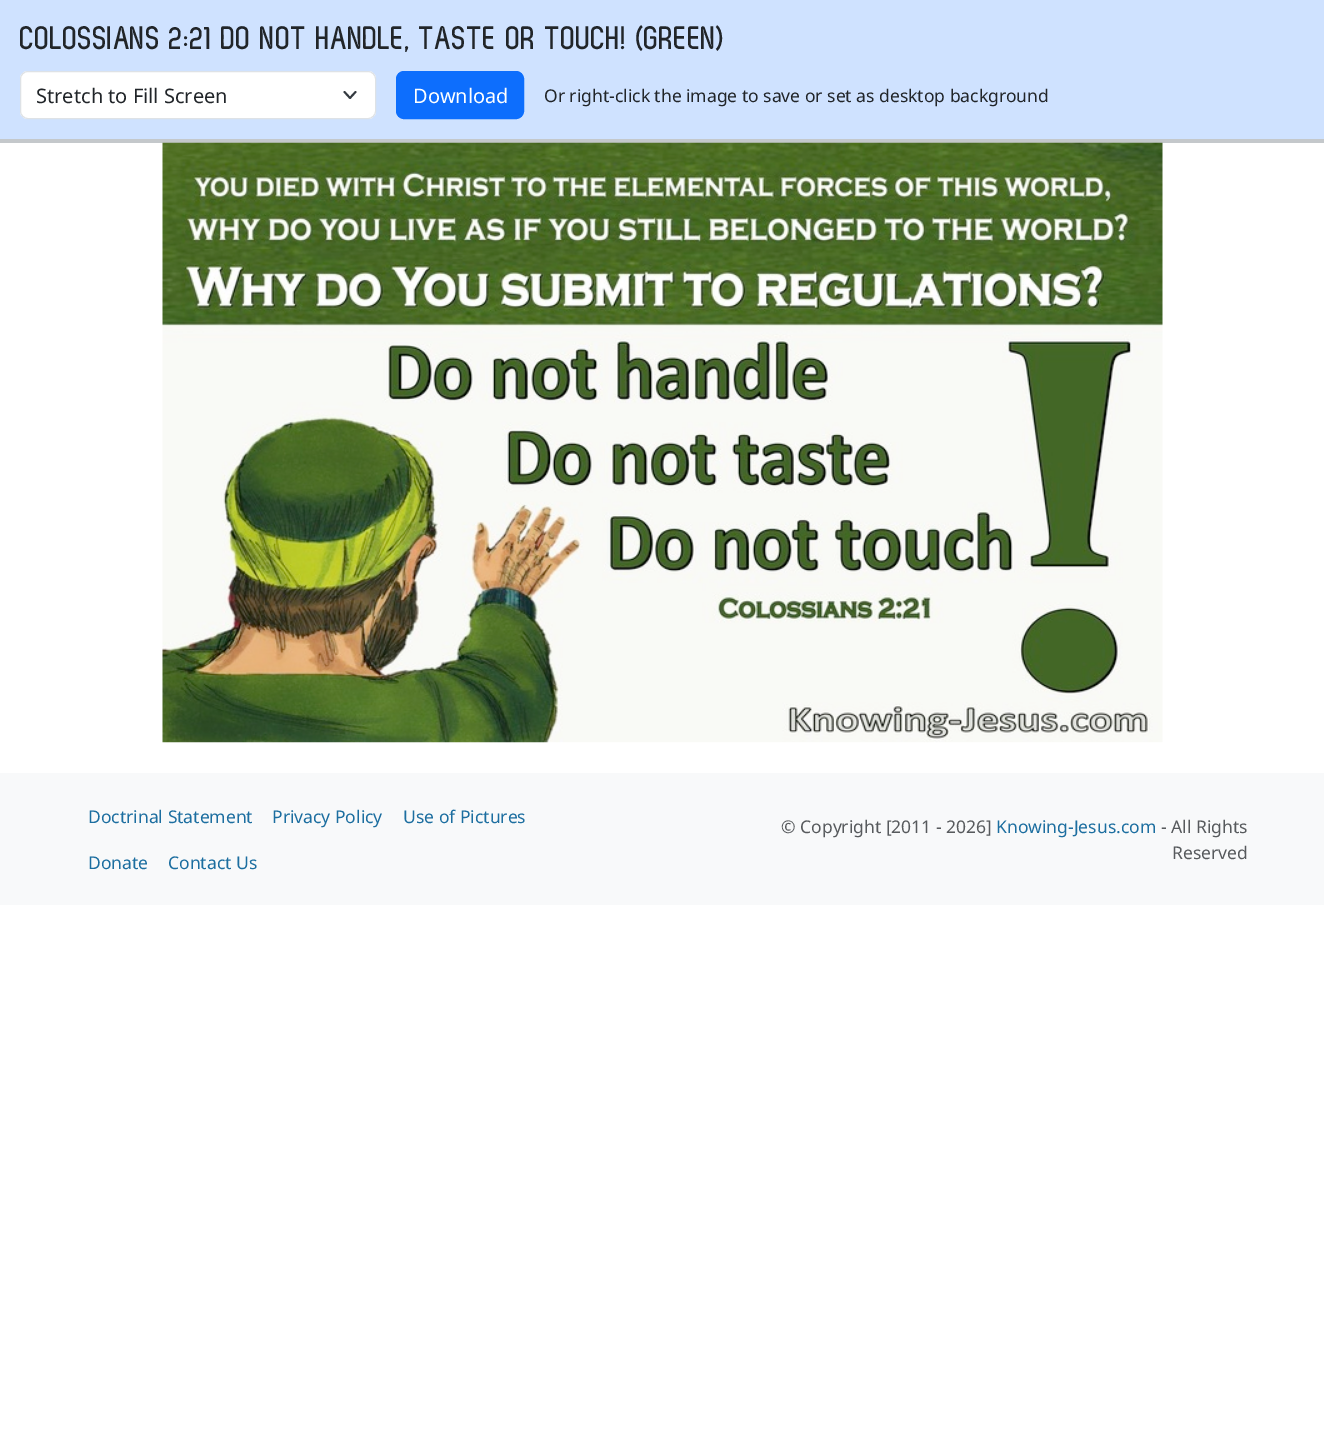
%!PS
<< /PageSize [1324 1447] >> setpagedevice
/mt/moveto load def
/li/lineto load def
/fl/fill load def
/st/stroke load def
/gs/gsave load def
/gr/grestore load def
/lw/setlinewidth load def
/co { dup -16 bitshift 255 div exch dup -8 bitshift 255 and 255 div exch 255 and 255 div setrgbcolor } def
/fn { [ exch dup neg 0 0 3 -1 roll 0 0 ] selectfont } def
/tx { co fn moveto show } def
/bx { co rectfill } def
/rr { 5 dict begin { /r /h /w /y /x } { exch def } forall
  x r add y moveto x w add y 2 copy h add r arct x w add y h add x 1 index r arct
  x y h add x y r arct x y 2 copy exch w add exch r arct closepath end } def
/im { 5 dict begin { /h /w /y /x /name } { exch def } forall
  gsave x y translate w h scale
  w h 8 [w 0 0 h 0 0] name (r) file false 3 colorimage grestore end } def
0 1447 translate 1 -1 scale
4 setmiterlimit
0 0 1324 1447 16#FFFFFF bx
0 0 1324 139 16#CFE2FF bx
0 139 1324 4 16#C4C8CB bx
16#FFFFFF co
20 71 356 48 8 rr fl
16#343A40 co
1.9 lw
1 setlinecap
1 setlinejoin
344.5 92 mt 350 98 li 355.5 92 li st
16#DEE2E6 co
1 lw
0 setlinecap
0 setlinejoin
20.5 71.5 355 47 7.5 rr st
16#0D6EFD co
396.5 71.5 127 47 7.5 rr gs fl gr
st
(media/1.raw) 162 142 1001 601 im
0 773 1324 132 16#F8F9FA bx
(COLOSSIANS 2:21 DO NOT HANDLE, TASTE OR TOUCH! \(GREEN\)) 20 49 /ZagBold-Bold 32.5 16#212529 tx
(Stretch to Fill Screen) 36 103 /NotoSans-Regular 20 16#212529 tx
(Download) 413 103 /NotoSans-Regular 20 16#FFFFFF tx
(Or right-click the image to save or set as desktop background) 544 102 /NotoSans-Regular 17.5 16#212529 tx
(Doctrinal Statement) 88 823 /NotoSans-Regular 17.5 16#1C6EA0 tx
(Privacy Policy) 272 823 /NotoSans-Regular 17.5 16#1C6EA0 tx
(Use of Pictures) 403 823 /NotoSans-Regular 17.5 16#1C6EA0 tx
(Donate) 88 869 /NotoSans-Regular 17.5 16#1C6EA0 tx
(Contact Us) 168 869 /NotoSans-Regular 17.5 16#1C6EA0 tx
(© Copyright [2011 - 2026]) 781 833 /NotoSans-Regular 17.5 16#575A5D tx
(Knowing-Jesus.com) 996 833 /NotoSans-Regular 17.5 16#1C6EA0 tx
(- All Rights) 1161 833 /NotoSans-Regular 17.5 16#575A5D tx
(Reserved) 1172 859 /NotoSans-Regular 17.5 16#575A5D tx
showpage
